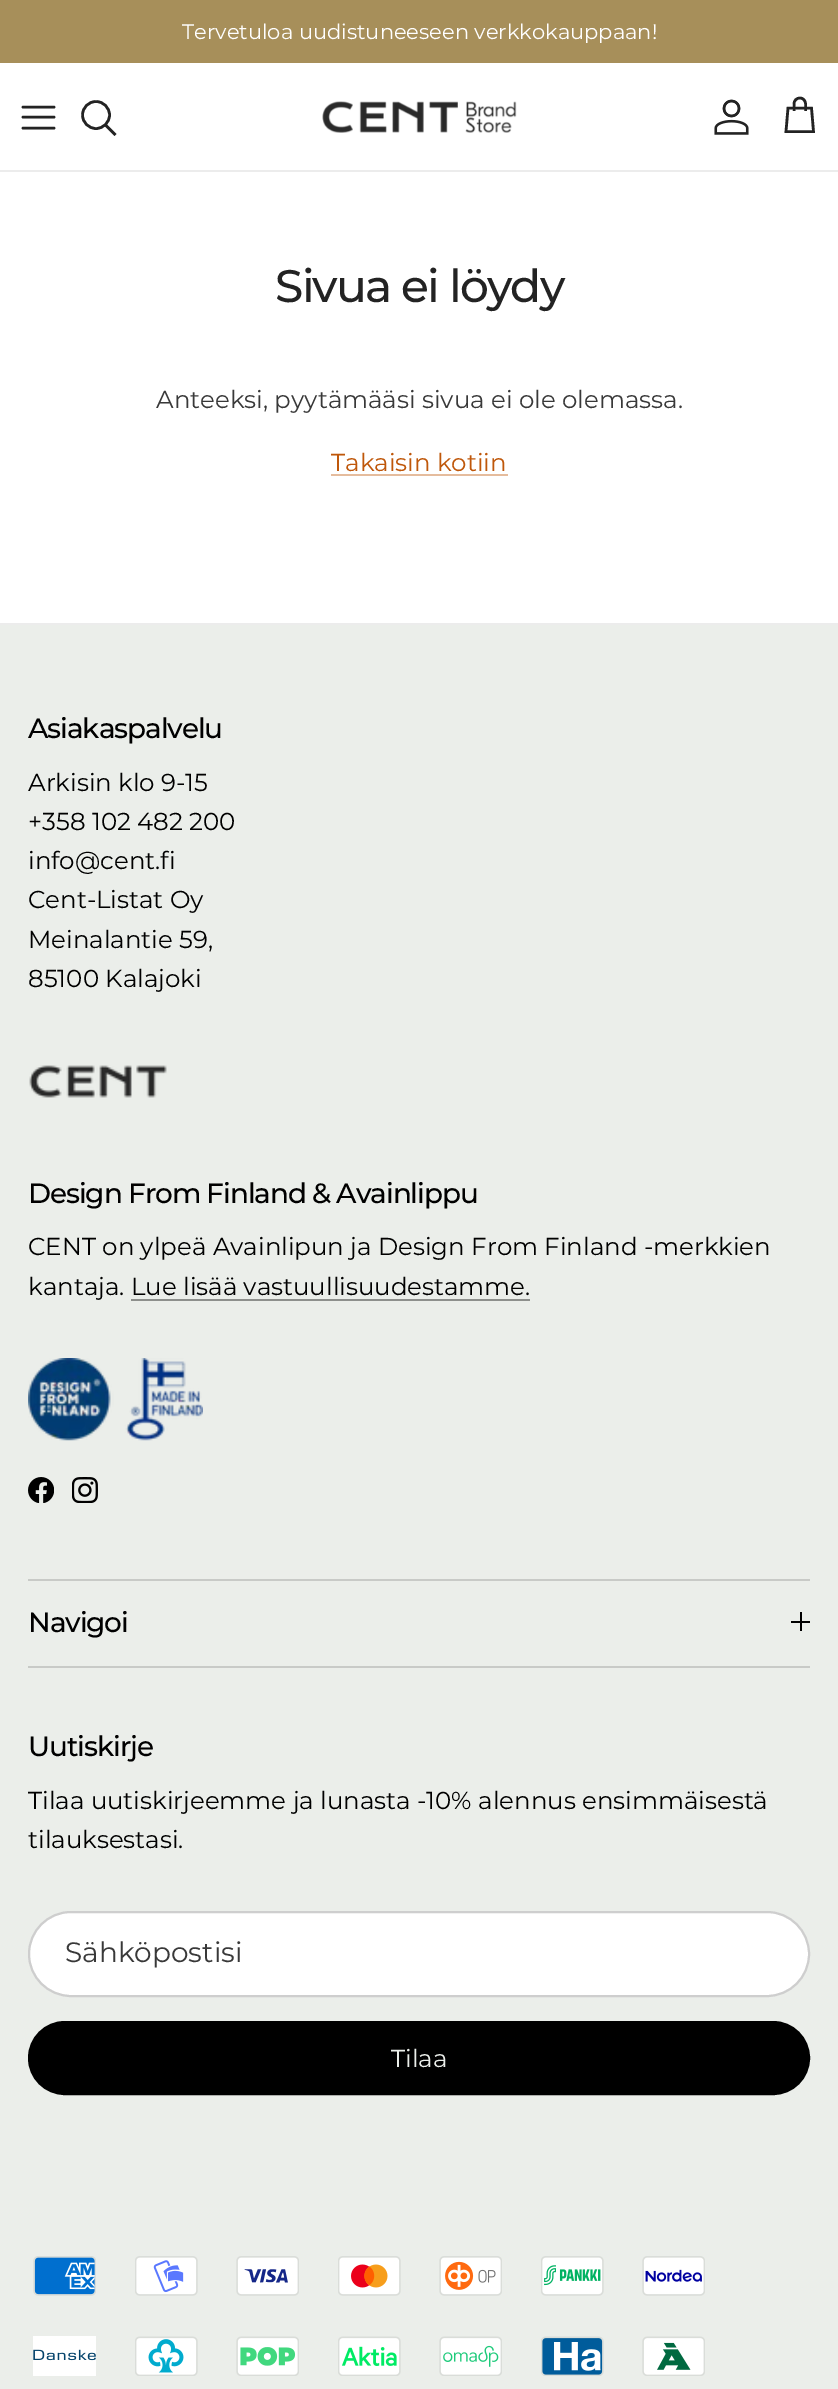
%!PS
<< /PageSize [838 2389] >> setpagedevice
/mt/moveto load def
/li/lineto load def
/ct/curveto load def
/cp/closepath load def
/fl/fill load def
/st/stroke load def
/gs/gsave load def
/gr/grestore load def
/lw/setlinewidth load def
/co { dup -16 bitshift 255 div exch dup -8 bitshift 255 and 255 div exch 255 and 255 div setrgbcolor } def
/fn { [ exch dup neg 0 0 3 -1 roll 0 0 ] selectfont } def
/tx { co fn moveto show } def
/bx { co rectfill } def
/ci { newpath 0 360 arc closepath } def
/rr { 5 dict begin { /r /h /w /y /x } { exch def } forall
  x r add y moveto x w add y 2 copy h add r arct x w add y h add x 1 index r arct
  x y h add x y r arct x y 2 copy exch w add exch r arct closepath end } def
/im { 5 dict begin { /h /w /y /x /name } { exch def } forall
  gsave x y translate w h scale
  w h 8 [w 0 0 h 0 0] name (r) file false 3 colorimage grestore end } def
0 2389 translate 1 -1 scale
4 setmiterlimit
0 0 838 2389 16#FFFFFF bx
0 0 838 63 16#A78F5A bx
0 170 838 2 16#ECECEC bx
16#232323 co
2.6 lw
1 setlinecap
1 setlinejoin
23 117 mt 54 117 li 23 107 mt 54 107 li 23 128 mt 54 128 li st
0 setlinecap
0 setlinejoin
96 115 13.5 ci st
2 setlinecap
106.5 126 mt 114.5 134 li st
(media/1.raw) 322 101 195 32 im
(media/2.raw) 714 99 35 36 im
0 setlinecap
805.5 111 mt 805.5 104 li 805.5 100.5 803 98 800 98 ct 796.5 98 794 100.5 794 104 ct 794 111 li 788 108 mt 811.5 108 li 813.5 131.5 li 786 131.5 li cp st
331 474 177 2 16#E5BC9D bx
0 625 838 1764 16#EBEEEA bx
0 623 838 2 16#ECECEC bx
(media/3.raw) 29 1065 138 33 im
(media/4.raw) 28 1358 175 83 im
(media/5.raw) 28 1477 26 26 im
(media/6.raw) 72 1477 26 26 im
28 1579 782 2 16#C8CAC7 bx
28 1666 782 2 16#C8CAC7 bx
800 1612 2 19 16#000000 bx
791 1621 19 2 16#000000 bx
16#FFFFFF co
29 1912 780 84 42 rr gs fl gr
16#CECECE co
2 lw
st
16#000000 co
29 2022 780 72 36 rr gs fl gr
st
(media/7.raw) 33 2256 63 40 im
(media/8.raw) 135 2256 63 40 im
(media/9.raw) 236 2256 63 40 im
(media/10.raw) 338 2256 63 40 im
(media/11.raw) 439 2256 63 40 im
(media/12.raw) 541 2256 63 40 im
(media/13.raw) 642 2256 63 40 im
(media/14.raw) 33 2336 63 40 im
(media/15.raw) 135 2336 63 40 im
(media/16.raw) 236 2336 63 40 im
(media/17.raw) 338 2336 63 40 im
(media/18.raw) 439 2336 63 40 im
(media/19.raw) 541 2336 63 40 im
(media/20.raw) 642 2336 63 40 im
(Tervetuloa uudistuneeseen verkkokauppaan!) 182 39 /Montserrat-Regular 21 16#FFFFFF tx
/Montserrat-Medium 45.5 fn
16#232323 co
275 302 mt -1.75 0 (Sivua ei löydy) ashow
(Anteeksi, pyytämääsi sivua ei ole olemassa.) 156 408 /Montserrat-Regular 24.5 16#393939 tx
(Takaisin kotiin) 331 471 /Montserrat-Regular 24.5 16#BF570A tx
/Montserrat-Medium 27.9 fn
16#000000 co
28 738 mt -1.1 0 (Asiakaspalvelu) ashow
(Arkisin klo 9-15) 28 791 /Montserrat-Regular 24.5 16#000000 tx
(+358 102 482 200) 28 830 /Montserrat-Regular 24.5 16#000000 tx
(info@cent.fi) 28 869 /Montserrat-Regular 24.5 16#000000 tx
(Cent-Listat Oy) 28 908 /Montserrat-Regular 24.5 16#000000 tx
(Meinalantie 59,) 28 948 /Montserrat-Regular 24.5 16#000000 tx
(85100 Kalajoki) 28 987 /Montserrat-Regular 24.5 16#000000 tx
/Montserrat-Medium 27.9 fn
28 1203 mt -1.1 0 (Design From Finland & Avainlippu) ashow
(CENT on ylpeä Avainlipun ja Design From Finland -merkkien) 28 1255 /Montserrat-Regular 24.5 16#000000 tx
(kantaja. Lue lisää vastuullisuudestamme.) 28 1295 /Montserrat-Regular 24.5 16#000000 tx
131 1299 399 2 16#8D8F8C bx
/Montserrat-Medium 27.9 fn
16#000000 co
28 1632 mt -1.1 0 (Navigoi) ashow
28 1756 mt -1.1 0 (Uutiskirje) ashow
(Tilaa uutiskirjeemme ja lunasta -10% alennus ensimmäisestä) 28 1809 /Montserrat-Regular 24.5 16#000000 tx
(tilauksestasi.) 28 1848 /Montserrat-Regular 24.5 16#000000 tx
(Sähköpostisi) 65 1962 /Montserrat-Regular 28 16#393939 tx
(Tilaa) 391 2067 /Montserrat-Regular 24.5 16#EBEEEA tx
showpage
